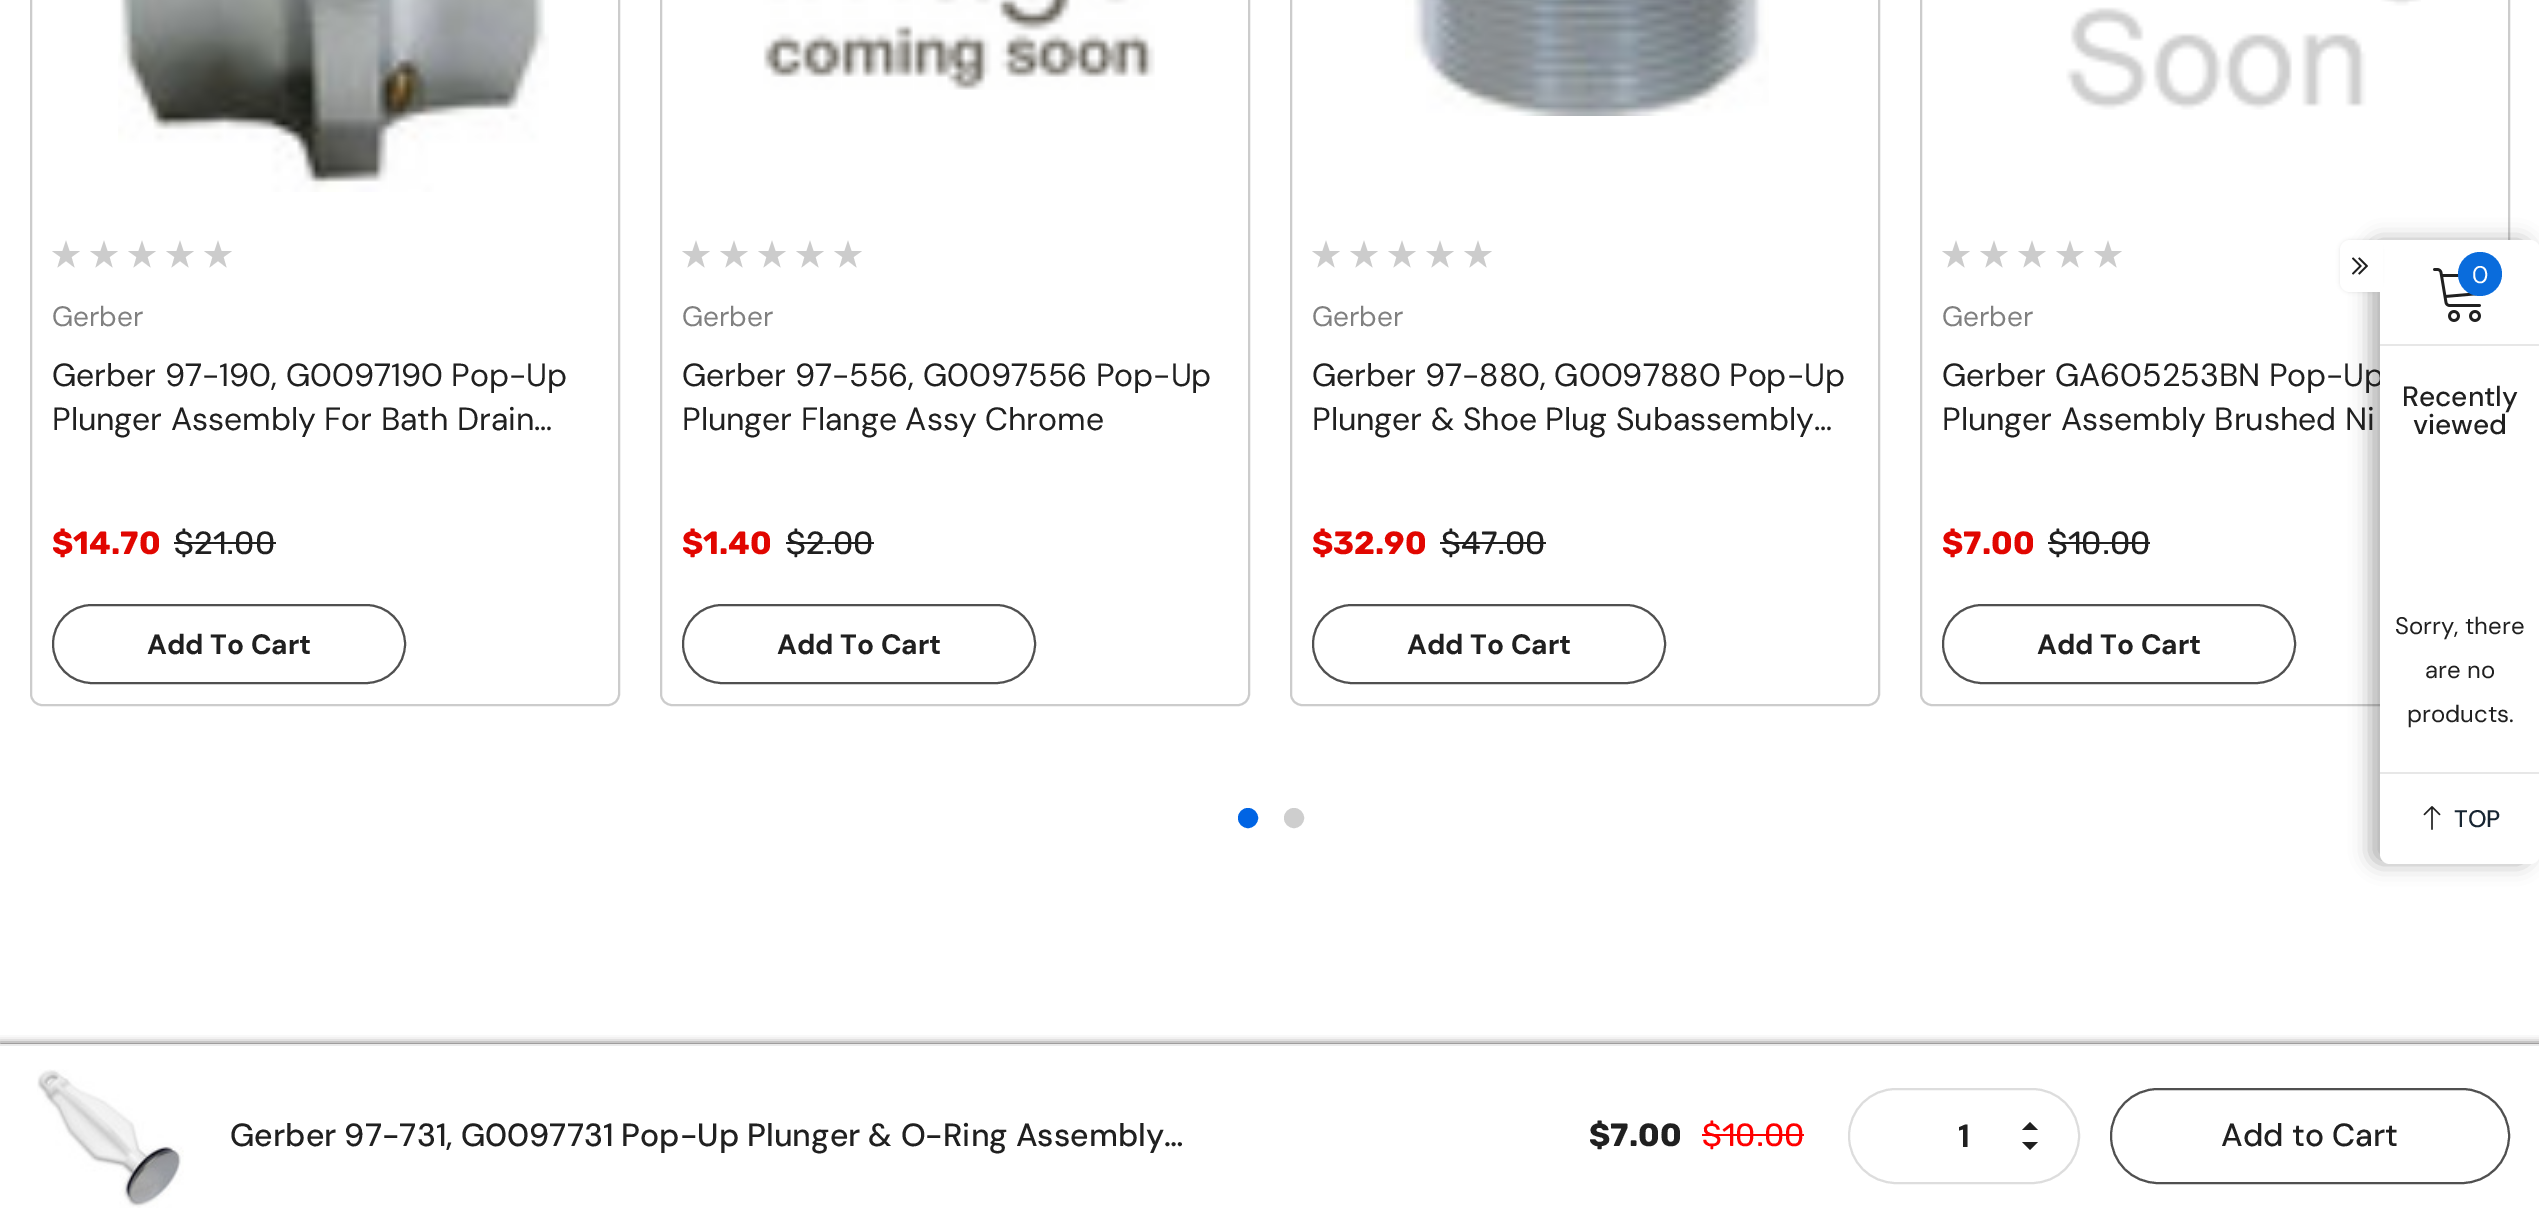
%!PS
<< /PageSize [2539 1226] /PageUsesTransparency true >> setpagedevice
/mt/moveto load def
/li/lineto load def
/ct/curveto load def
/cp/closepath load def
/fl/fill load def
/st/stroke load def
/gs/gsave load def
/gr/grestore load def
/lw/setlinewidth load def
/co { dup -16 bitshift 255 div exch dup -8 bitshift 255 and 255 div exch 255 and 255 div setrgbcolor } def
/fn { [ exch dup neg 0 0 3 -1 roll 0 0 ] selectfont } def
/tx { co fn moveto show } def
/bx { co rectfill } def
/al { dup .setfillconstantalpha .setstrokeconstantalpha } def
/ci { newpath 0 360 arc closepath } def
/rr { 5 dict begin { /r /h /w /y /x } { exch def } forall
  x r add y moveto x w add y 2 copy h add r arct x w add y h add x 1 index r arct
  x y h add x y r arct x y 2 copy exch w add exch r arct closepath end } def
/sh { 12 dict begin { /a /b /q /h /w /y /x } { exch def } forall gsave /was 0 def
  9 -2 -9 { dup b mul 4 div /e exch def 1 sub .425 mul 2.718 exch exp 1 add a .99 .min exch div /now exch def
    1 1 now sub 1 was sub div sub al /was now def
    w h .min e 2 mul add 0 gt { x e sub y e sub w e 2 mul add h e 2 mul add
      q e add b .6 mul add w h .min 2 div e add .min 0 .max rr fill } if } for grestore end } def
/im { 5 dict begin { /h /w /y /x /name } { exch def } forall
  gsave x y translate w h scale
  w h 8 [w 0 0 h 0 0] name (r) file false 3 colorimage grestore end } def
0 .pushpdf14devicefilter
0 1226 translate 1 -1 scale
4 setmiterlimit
0 0 2539 1226 16#FFFFFF bx
16#CCCCCC co
2 lw
31 -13 588 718 11 rr st
(media/1.raw) 118 0 431 192 im
66 261 mt 74.5 267.5 li 71.5 257 li 80 251 li 69.5 251 li 66 240.5 li 62.5 251 li 52 251 li 60.5 257 li 57.5 267.5 li cp fl
104 261 mt 112.5 267.5 li 109.5 257 li 118 251 li 107.5 251 li 104 240.5 li 100.5 251 li 90 251 li 98.5 257 li 95.5 267.5 li cp fl
142 261 mt 150.5 267.5 li 147.5 257 li 156 251 li 145.5 251 li 142 240.5 li 138.5 251 li 128 251 li 136.5 257 li 133.5 267.5 li cp fl
180 261 mt 188.5 267.5 li 185.5 257 li 194 251 li 183.5 251 li 180 240.5 li 176.5 251 li 166 251 li 174.5 257 li 171.5 267.5 li cp fl
218 261 mt 226.5 267.5 li 223.5 257 li 232 251 li 221.5 251 li 218 240.5 li 214.5 251 li 204 251 li 212.5 257 li 209.5 267.5 li cp fl
174 542 102 2 16#202020 bx
16#505050 co
53 605 352 78 39 rr st
16#CCCCCC co
661 -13 588 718 11 rr st
(media/2.raw) 763 0 392 90 im
696 261 mt 704.5 267.5 li 701.5 257 li 710 251 li 699.5 251 li 696 240.5 li 692.5 251 li 682 251 li 690.5 257 li 687.5 267.5 li cp fl
734 261 mt 742.5 267.5 li 739.5 257 li 748 251 li 737.5 251 li 734 240.5 li 730.5 251 li 720 251 li 728.5 257 li 725.5 267.5 li cp fl
772 261 mt 780.5 267.5 li 777.5 257 li 786 251 li 775.5 251 li 772 240.5 li 768.5 251 li 758 251 li 766.5 257 li 763.5 267.5 li cp fl
810 261 mt 818.5 267.5 li 815.5 257 li 824 251 li 813.5 251 li 810 240.5 li 806.5 251 li 796 251 li 804.5 257 li 801.5 267.5 li cp fl
848 261 mt 856.5 267.5 li 853.5 257 li 862 251 li 851.5 251 li 848 240.5 li 844.5 251 li 834 251 li 842.5 257 li 839.5 267.5 li cp fl
786 542 88 2 16#202020 bx
16#505050 co
683 605 352 78 39 rr st
16#CCCCCC co
1291 -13 588 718 11 rr st
(media/3.raw) 1405 0 364 116 im
1326 261 mt 1334.5 267.5 li 1331.5 257 li 1340 251 li 1329.5 251 li 1326 240.5 li 1322.5 251 li 1312 251 li 1320.5 257 li 1317.5 267.5 li cp fl
1364 261 mt 1372.5 267.5 li 1369.5 257 li 1378 251 li 1367.5 251 li 1364 240.5 li 1360.5 251 li 1350 251 li 1358.5 257 li 1355.5 267.5 li cp fl
1402 261 mt 1410.5 267.5 li 1407.5 257 li 1416 251 li 1405.5 251 li 1402 240.5 li 1398.5 251 li 1388 251 li 1396.5 257 li 1393.5 267.5 li cp fl
1440 261 mt 1448.5 267.5 li 1445.5 257 li 1454 251 li 1443.5 251 li 1440 240.5 li 1436.5 251 li 1426 251 li 1434.5 257 li 1431.5 267.5 li cp fl
1478 261 mt 1486.5 267.5 li 1483.5 257 li 1492 251 li 1481.5 251 li 1478 240.5 li 1474.5 251 li 1464 251 li 1472.5 257 li 1469.5 267.5 li cp fl
1440 542 106 2 16#202020 bx
16#505050 co
1313 605 352 78 39 rr st
16#CCCCCC co
1921 -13 588 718 11 rr st
(media/4.raw) 2066 0 355 110 im
1956 261 mt 1964.5 267.5 li 1961.5 257 li 1970 251 li 1959.5 251 li 1956 240.5 li 1952.5 251 li 1942 251 li 1950.5 257 li 1947.5 267.5 li cp fl
1994 261 mt 2002.5 267.5 li 1999.5 257 li 2008 251 li 1997.5 251 li 1994 240.5 li 1990.5 251 li 1980 251 li 1988.5 257 li 1985.5 267.5 li cp fl
2032 261 mt 2040.5 267.5 li 2037.5 257 li 2046 251 li 2035.5 251 li 2032 240.5 li 2028.5 251 li 2018 251 li 2026.5 257 li 2023.5 267.5 li cp fl
2070 261 mt 2078.5 267.5 li 2075.5 257 li 2084 251 li 2073.5 251 li 2070 240.5 li 2066.5 251 li 2056 251 li 2064.5 257 li 2061.5 267.5 li cp fl
2108 261 mt 2116.5 267.5 li 2113.5 257 li 2122 251 li 2111.5 251 li 2108 240.5 li 2104.5 251 li 2094 251 li 2102.5 257 li 2099.5 267.5 li cp fl
2048 542 102 2 16#202020 bx
16#505050 co
1943 605 352 78 39 rr st
16#0064E4 co
1248 818 9 ci gs fl gr
st
16#CECECE co
1294 818 9 ci gs fl gr
st
16#3C3838 co
0 1044 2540 182 0 4 1 sh
0 1046 2539 180 16#FFFFFF bx
0 1044 2539 2 16#EAEAEA bx
(media/5.raw) 37 1069 147 139 im
1702 1134 102 2 16#FF0000 bx
16#DDDDDD co
1849 1089 230 94 47 rr st
16#202020 co
2022 1142 mt 2038 1142 li 2030 1150 li cp 2038 1130 mt 2022 1130 li 2030 1122 li cp fl
16#505050 co
2111 1089 398 94 47 rr st
16#000000 co
2370 240 160 624 10 10 .3 sh
(Gerber) 52 326 /DMSans-Regular 28 16#808080 tx
(Gerber 97-190, G0097190 Pop-Up) 52 386 /DMSans-Regular 32 16#202020 tx
(Plunger Assembly For Bath Drain…) 52 430 /DMSans-Regular 32 16#202020 tx
($14.70) 52 554 /Rubik-Bold 32 16#E10600 tx
($21.00) 174 554 /Rubik-Regular 32 16#202020 tx
(Add To Cart) 147 654 /DMSans-Bold 28 16#202020 tx
(Gerber) 682 326 /DMSans-Regular 28 16#808080 tx
(Gerber 97-556, G0097556 Pop-Up) 682 386 /DMSans-Regular 32 16#202020 tx
(Plunger Flange Assy Chrome) 682 430 /DMSans-Regular 32 16#202020 tx
($1.40) 682 554 /Rubik-Bold 32 16#E10600 tx
($2.00) 786 554 /Rubik-Regular 32 16#202020 tx
(Add To Cart) 777 654 /DMSans-Bold 28 16#202020 tx
(Gerber) 1312 326 /DMSans-Regular 28 16#808080 tx
(Gerber 97-880, G0097880 Pop-Up) 1312 386 /DMSans-Regular 32 16#202020 tx
(Plunger & Shoe Plug Subassembly…) 1312 430 /DMSans-Regular 32 16#202020 tx
($32.90) 1312 554 /Rubik-Bold 32 16#E10600 tx
($47.00) 1441 554 /Rubik-Regular 32 16#202020 tx
(Add To Cart) 1407 654 /DMSans-Bold 28 16#202020 tx
(Gerber) 1942 326 /DMSans-Regular 28 16#808080 tx
(Gerber GA605253BN Pop-Up) 1942 386 /DMSans-Regular 32 16#202020 tx
(Plunger Assembly Brushed Ni) 1942 430 /DMSans-Regular 32 16#202020 tx
($7.00) 1942 554 /Rubik-Bold 32 16#E10600 tx
($10.00) 2048 554 /Rubik-Regular 32 16#202020 tx
(Add To Cart) 2037 654 /DMSans-Bold 28 16#202020 tx
(Gerber 97-731, G0097731 Pop-Up Plunger & O-Ring Assembly…) 230 1146 /DMSans-Medium 32 16#202020 tx
($7.00) 1589 1146 /Rubik-Bold 32 16#202020 tx
($10.00) 1702 1146 /Rubik-Regular 32 16#FF0000 tx
(1) 1958 1147 /DMSans-Bold 32 16#202020 tx
(Add to Cart) 2221 1146 /DMSans-Medium 32 16#202020 tx
16#FFFFFF co
2380 240 mt 2530 240 li 2535.5 240 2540 244.5 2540 250 ct 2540 854 li 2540 859.5 2535.5 864 2530 864 ct 2390 864 li 2384.5 864 2380 859.5 2380 854 ct cp fl
16#000000 co
2340 240 40 52 10 2 .1 sh
16#FFFFFF co
2350 240 mt 2380 240 li 2380 292 li 2350 292 li 2344.5 292 2340 287.5 2340 282 ct 2340 250 li 2340 244.5 2344.5 240 2350 240 ct cp fl
(media/6.raw) 2352 257 16 18 im
2380 242 3 52 16#FFFFFF bx
(media/7.raw) 2433 268 48 54 im
16#0A6CDC co
2480 274 22 ci fl
(0) 2472 283 /DMSans-Regular 24 16#FFFFFF tx
2380 344 159 2 16#E7E7E7 bx
2380 772 159 2 16#E7E7E7 bx
(Recently) 2402 406 /DMSans-Medium 28 16#202020 tx
(viewed) 2413 434 /DMSans-Medium 28 16#202020 tx
(Sorry, there) 2395 634 /DMSans-Regular 24 16#202020 tx
(are no) 2425 678 /DMSans-Regular 24 16#202020 tx
(products.) 2407 722 /DMSans-Regular 24 16#202020 tx
(media/8.raw) 2423 806 18 24 im
(TOP) 2454 827 /DMSans-Medium 24 16#172532 tx
.poppdf14devicefilter showpage
